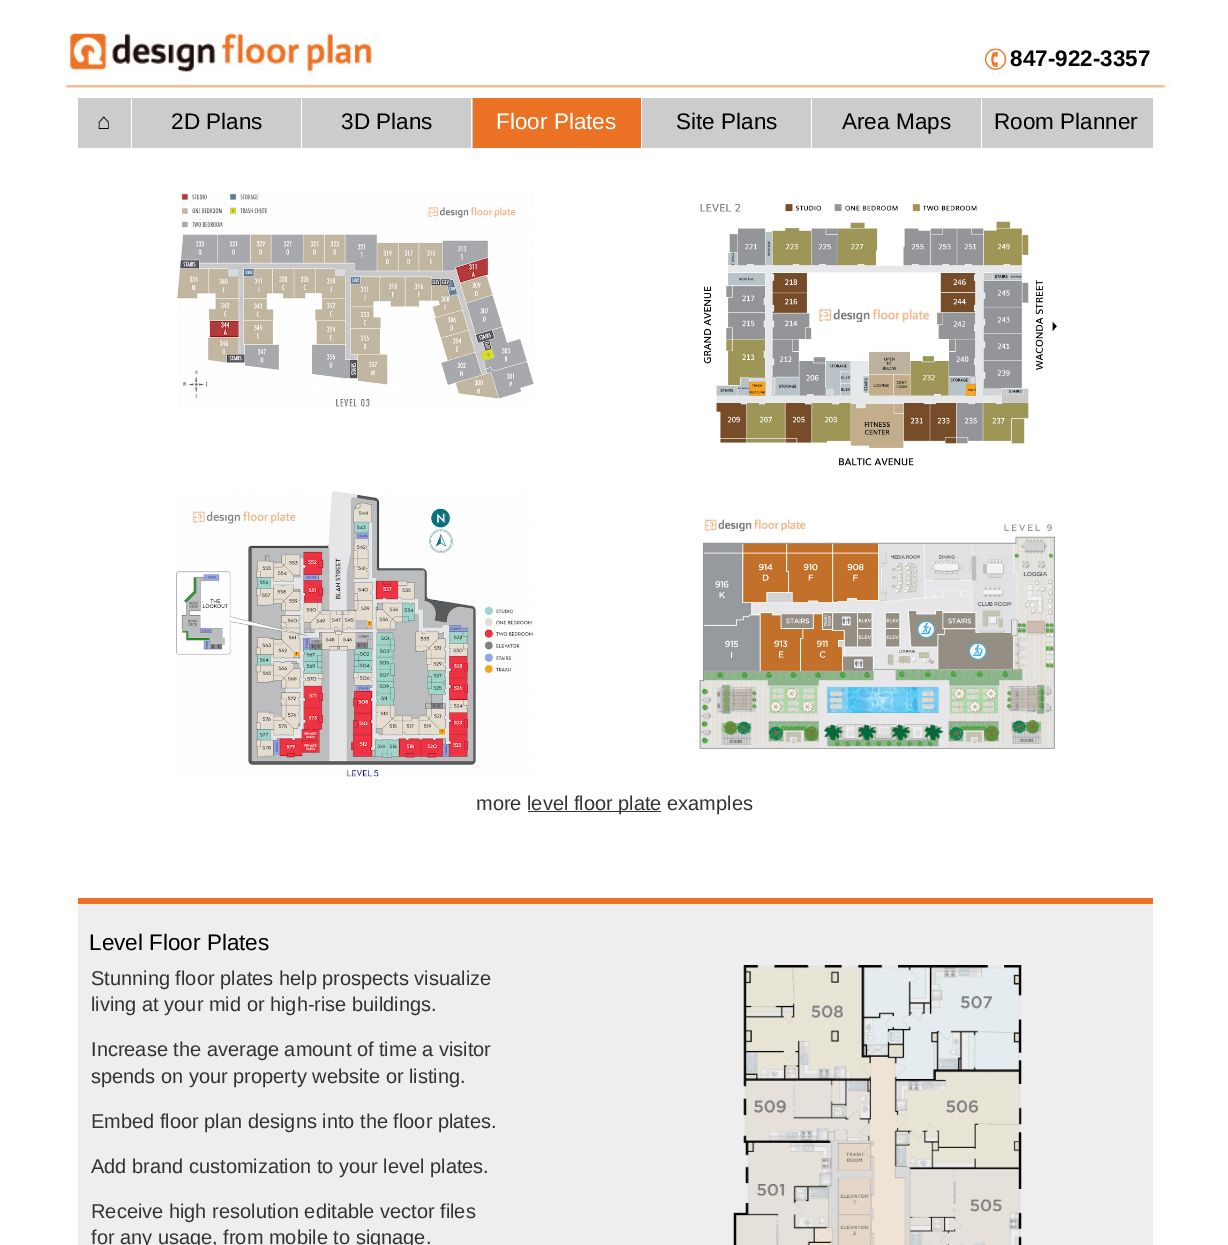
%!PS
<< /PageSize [1228 1245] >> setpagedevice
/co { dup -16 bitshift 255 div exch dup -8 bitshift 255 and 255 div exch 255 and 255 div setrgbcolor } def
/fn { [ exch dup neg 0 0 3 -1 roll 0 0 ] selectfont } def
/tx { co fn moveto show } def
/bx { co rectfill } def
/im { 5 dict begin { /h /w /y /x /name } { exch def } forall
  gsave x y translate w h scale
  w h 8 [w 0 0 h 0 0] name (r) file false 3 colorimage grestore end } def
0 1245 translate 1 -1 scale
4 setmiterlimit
0 0 1228 1245 16#FFFFFF bx
(media/1.raw) 63 30 1109 60 im
(media/2.raw) 985 47 22 23 im
78 98 1075 50 16#CCCCCC bx
131 98 1 50 16#FFFFFF bx
301 98 1 50 16#FFFFFF bx
471 98 1 50 16#FFFFFF bx
641 98 1 50 16#FFFFFF bx
473 98 168 50 16#EB7225 bx
811 98 1 50 16#FFFFFF bx
981 98 1 50 16#FFFFFF bx
(media/3.raw) 177 193 357 214 im
(media/4.raw) 700 204 357 262 im
(media/5.raw) 176 491 357 286 im
(media/6.raw) 699 519 358 230 im
528 811 133 1 16#333333 bx
78 904 1075 341 16#EEEEEE bx
78 898 1075 6 16#EB7225 bx
(media/7.raw) 733 965 289 280 im
(847-922-3357) 1010 66 /LiberationSans-Bold 22.5 16#000000 tx
(⌂) 97 129 /LiberationSans-Regular 22.5 16#000000 tx
(2D Plans) 171 129 /LiberationSans-Regular 22.5 16#000000 tx
(3D Plans) 341 129 /LiberationSans-Regular 22.5 16#000000 tx
(Floor Plates) 496 129 /LiberationSans-Regular 22.5 16#FFFFFF tx
(Site Plans) 676 129 /LiberationSans-Regular 22.5 16#000000 tx
(Area Maps) 842 129 /LiberationSans-Regular 22.5 16#000000 tx
(Room Planner) 994 129 /LiberationSans-Regular 22.5 16#000000 tx
(more) 476 810 /LiberationSans-Regular 20 16#333333 tx
(level floor plate examples) 527 810 /LiberationSans-Regular 20 16#333333 tx
(Level Floor Plates) 89 950 /LiberationSans-Regular 22.5 16#000000 tx
(Stunning floor plates help prospects visualize) 91 985 /LiberationSans-Regular 20 16#333333 tx
(living at your mid or high-rise buildings.) 91 1011 /LiberationSans-Regular 20 16#333333 tx
(Increase the average amount of time a visitor) 91 1056 /LiberationSans-Regular 20 16#333333 tx
(spends on your property website or listing.) 91 1083 /LiberationSans-Regular 20 16#333333 tx
(Embed floor plan designs into the floor plates.) 91 1128 /LiberationSans-Regular 20 16#333333 tx
(Add brand customization to your level plates.) 91 1173 /LiberationSans-Regular 20 16#333333 tx
(Receive high resolution editable vector files) 91 1218 /LiberationSans-Regular 20 16#333333 tx
(for any usage, from mobile to signage.) 91 1244 /LiberationSans-Regular 20 16#333333 tx
showpage
